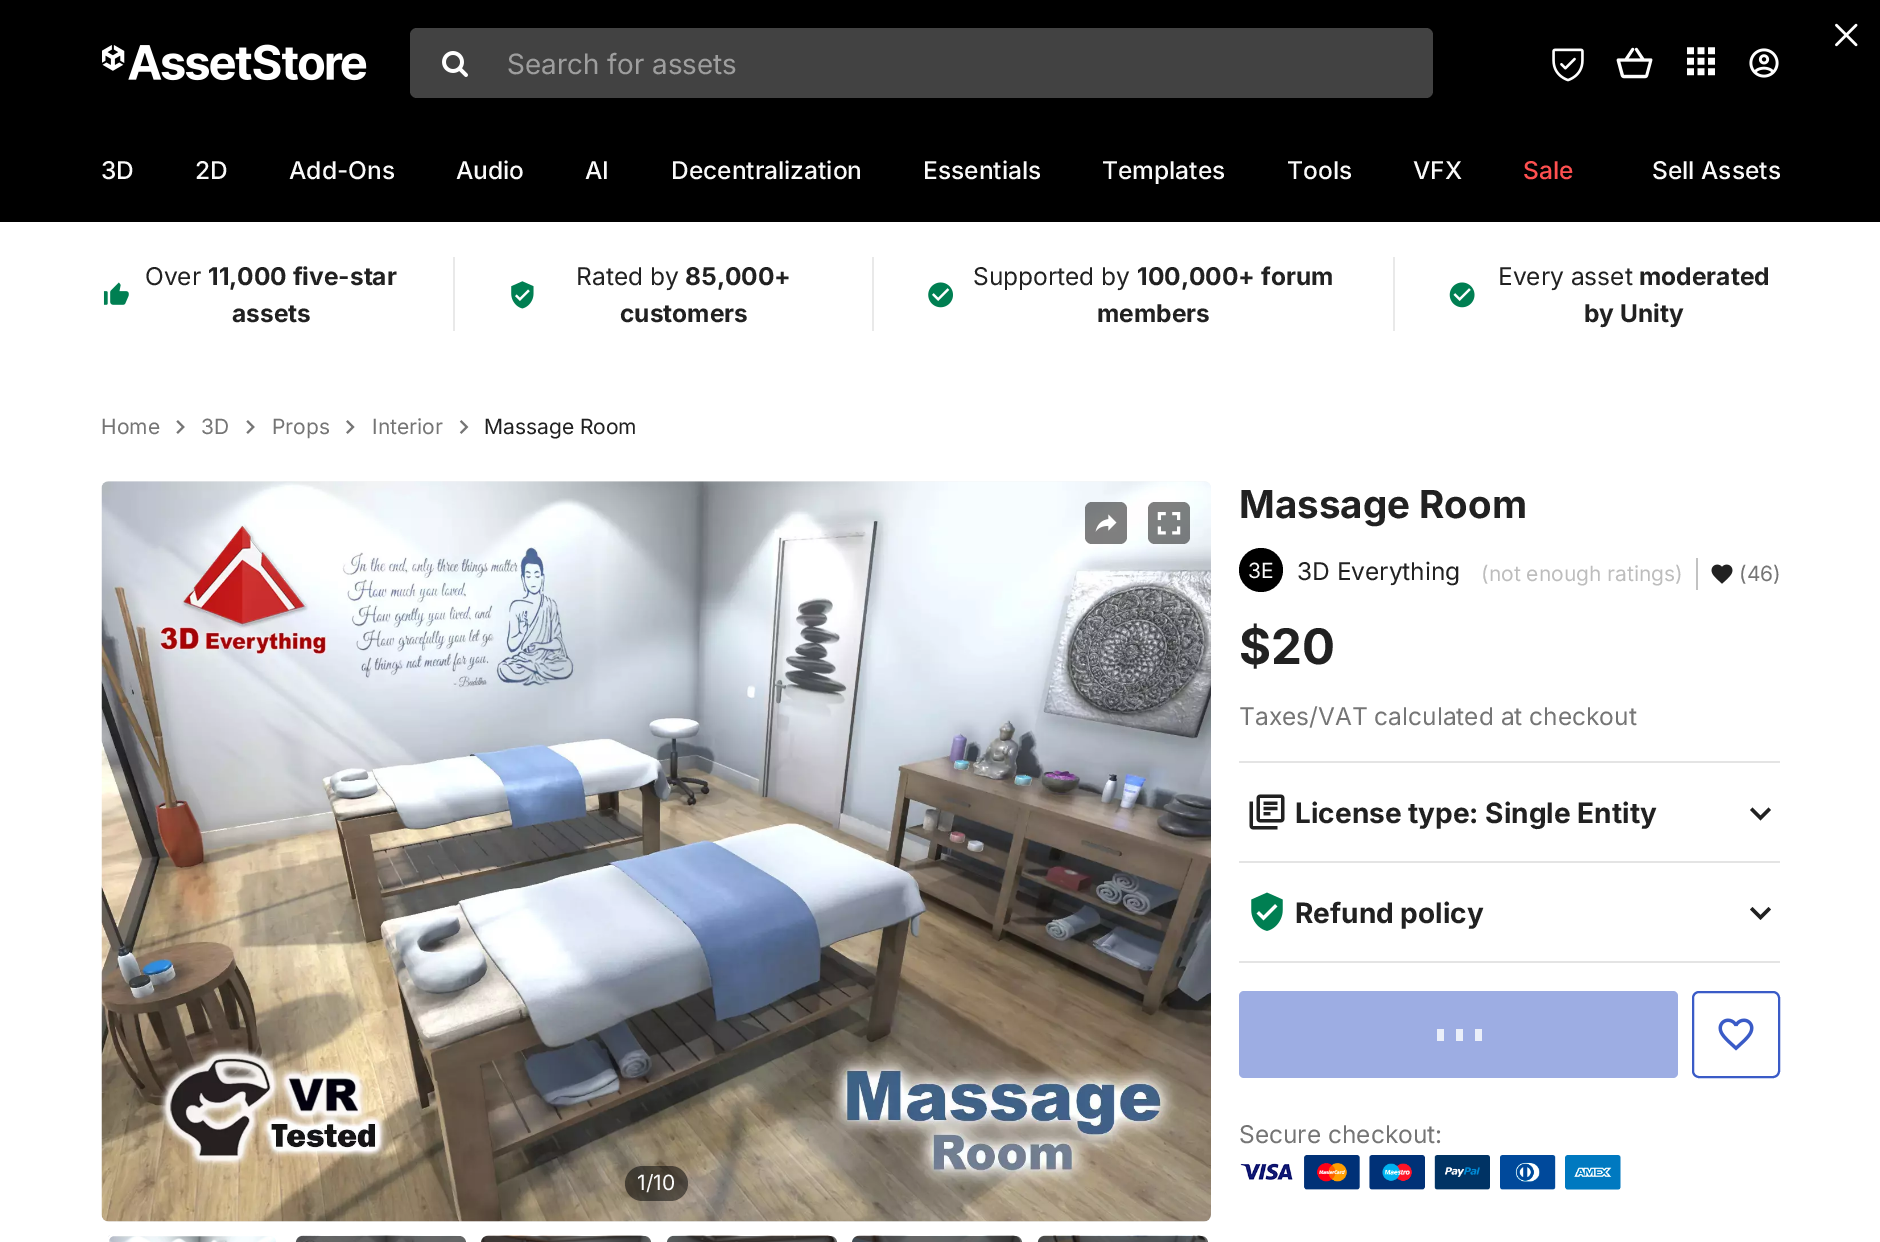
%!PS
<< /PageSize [1880 1242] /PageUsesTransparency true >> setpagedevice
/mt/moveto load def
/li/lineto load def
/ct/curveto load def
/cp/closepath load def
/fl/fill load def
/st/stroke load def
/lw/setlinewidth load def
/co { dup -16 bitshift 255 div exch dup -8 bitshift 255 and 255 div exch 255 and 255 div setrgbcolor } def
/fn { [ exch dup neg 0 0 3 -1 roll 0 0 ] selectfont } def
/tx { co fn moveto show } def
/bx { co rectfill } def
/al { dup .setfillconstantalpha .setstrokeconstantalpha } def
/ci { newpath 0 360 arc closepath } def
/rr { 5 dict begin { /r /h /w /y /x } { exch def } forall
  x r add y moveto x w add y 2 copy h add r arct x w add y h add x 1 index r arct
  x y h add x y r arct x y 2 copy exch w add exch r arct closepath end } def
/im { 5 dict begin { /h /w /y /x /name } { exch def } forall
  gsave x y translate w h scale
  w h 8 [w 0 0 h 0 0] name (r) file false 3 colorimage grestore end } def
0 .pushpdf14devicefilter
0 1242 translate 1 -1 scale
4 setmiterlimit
0 0 1880 1242 16#FFFFFF bx
0 0 1880 222 16#000000 bx
(media/1.raw) 1835 23 23 24 im
(media/2.raw) 102 44 265 37 im
16#424242 co
410 28 1023 70 7 rr fl
(media/3.raw) 442 51 26 26 im
(media/4.raw) 1552 48 32 34 im
(media/5.raw) 1616 47 37 32 im
(media/6.raw) 1687 47 28 29 im
(media/7.raw) 1749 48 30 30 im
(media/8.raw) 103 282 26 23 im
872 257 2 74 16#E9E9E9 bx
453 257 2 74 16#E9E9E9 bx
(media/9.raw) 511 281 23 28 im
1393 257 2 74 16#E9E9E9 bx
(media/10.raw) 928 282 25 26 im
(media/11.raw) 1449 282 26 26 im
(media/12.raw) 176 420 9 14 im
(media/12.raw) 246 420 9 14 im
(media/13.raw) 346 420 9 14 im
(media/14.raw) 459 420 10 14 im
16#000000 co
1261 570 22 ci fl
1696 558 2 32 16#C2C2C2 bx
(media/15.raw) 1711 564 22 20 im
1239 761 541 2 16#E4E4E4 bx
(media/16.raw) 1249 794 36 36 im
16#212121 co
1760.5 820.5 mt 1771 810 li 1768.5 807.5 li 1760.5 815.5 li 1752.5 807.5 li 1750 810 li cp fl
1239 861 541 2 16#E4E4E4 bx
1239 961 541 2 16#E4E4E4 bx
(media/17.raw) 1251 892 32 39 im
16#212121 co
1760.5 920 mt 1771 909.5 li 1768.5 907 li 1760.5 915 li 1752.5 907 li 1750 909.5 li cp fl
16#9DADE3 co
1239 991 439 87 5 rr fl
1437 1029 7 12 16#EBEFF9 bx
1456 1029 7 12 16#EBEFF9 bx
1475 1029 7 12 16#EBEFF9 bx
16#3A5BC7 co
2 lw
1693 992 86 85 6 rr st
(media/18.raw) 1718 1018 36 33 im
(media/19.raw) 1240 1155 381 35 im
16#F5F5F5 co
102 481 1109 741 7 rr fl
(media/22.raw) 101 481 1110 741 im
0.5 al
16#000000 co
1085 502 42 42 7 rr fl
1 al
(media/20.raw) 1095 514 22 18 im
0.5 al
1148 502 42 42 7 rr fl
1 al
(media/21.raw) 1157 512 24 23 im
0.5 al
625 1166 63 35 17.5 rr fl
1 al
(media/23.raw) 108 1235 169 7 im
16#FFFFFF co
108 1235 169 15 6 rr st
(media/24.raw) 295 1235 169 7 im
0.6 al
16#000000 co
303 1236 mt 459 1236 li 463 1236 466 1239 466 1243 ct 296 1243 li 296 1239 299 1236 303 1236 ct cp fl
1 al
(media/25.raw) 481 1235 168 7 im
0.6 al
488 1236 mt 644 1236 li 648 1236 651 1239 651 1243 ct 481 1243 li 481 1239 484 1236 488 1236 ct cp fl
1 al
(media/26.raw) 667 1235 168 7 im
0.6 al
674 1236 mt 830 1236 li 834 1236 837 1239 837 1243 ct 667 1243 li 667 1239 670 1236 674 1236 ct cp fl
1 al
(media/27.raw) 852 1235 169 7 im
0.6 al
859 1236 mt 1015 1236 li 1019 1236 1022 1239 1022 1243 ct 852 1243 li 852 1239 855 1236 859 1236 ct cp fl
1 al
(media/28.raw) 1037 1235 169 7 im
0.6 al
1045 1236 mt 1201 1236 li 1205 1236 1208 1239 1208 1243 ct 1038 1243 li 1038 1239 1041 1236 1045 1236 ct cp fl
1 al
(Search for assets) 507 74 /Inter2-Regular 28 16#9E9E9E tx
(3D) 101 179 /Inter-Medium 24.5 16#FAFAFA tx
(2D) 195 179 /Inter-Medium 24.5 16#FAFAFA tx
(Add-Ons) 289 179 /Inter-Medium 24.5 16#FAFAFA tx
(Audio) 456 179 /Inter-Medium 24.5 16#FAFAFA tx
(AI) 585 179 /Inter-Medium 24.5 16#FAFAFA tx
(Decentralization) 671 179 /Inter-Medium 24.5 16#FAFAFA tx
(Essentials) 923 179 /Inter-Medium 24.5 16#FAFAFA tx
(Templates) 1102 179 /Inter-Medium 24.5 16#FAFAFA tx
(Tools) 1287 179 /Inter-Medium 24.5 16#FAFAFA tx
(VFX) 1413 179 /Inter-Medium 24.5 16#FAFAFA tx
(Sale) 1523 179 /Inter-Medium 24.5 16#FF5050 tx
(Sell Assets) 1652 179 /Inter-Medium 24.5 16#FAFAFA tx
(Over) 145 285 /Inter-Regular 24.5 16#212121 tx
(11,000 five-star) 208 285 /Inter-Bold 24.5 16#212121 tx
(assets) 232 322 /Inter-Bold 24.5 16#212121 tx
(Rated by) 576 285 /Inter-Regular 24.5 16#212121 tx
(85,000+) 685 285 /Inter-Bold 24.5 16#212121 tx
(customers) 620 322 /Inter-Bold 24.5 16#212121 tx
(Supported by) 973 285 /Inter-Regular 24.5 16#212121 tx
(100,000+ forum) 1137 285 /Inter-Bold 24.5 16#212121 tx
(members) 1097 322 /Inter-Bold 24.5 16#212121 tx
(Every asset) 1498 285 /Inter-Regular 24.5 16#212121 tx
(moderated) 1639 285 /Inter-Bold 24.5 16#212121 tx
(by Unity) 1584 322 /Inter-Bold 24.5 16#212121 tx
(Home) 101 434 /Inter-Regular 21 16#757575 tx
(3D) 201 434 /Inter-Regular 21 16#757575 tx
(Props) 272 434 /Inter-Regular 21 16#757575 tx
(Interior) 372 434 /Inter-Regular 21 16#757575 tx
(Massage Room) 484 434 /Inter-Regular 21 16#212121 tx
(Massage Room) 1239 518 /Inter-Bold 38.5 16#212121 tx
(3E) 1248 578 /Inter-Regular 21 16#FAFAFA tx
(3D Everything) 1297 580 /Inter-Regular 24.5 16#212121 tx
(\(not enough ratings\)) 1481 581 /Inter-Regular 21 16#BDBDBD tx
(\(46\)) 1739 581 /Inter-Regular 21 16#757575 tx
($20) 1239 664 /Inter-Bold 49 16#212121 tx
(Taxes/VAT calculated at checkout) 1239 725 /Inter-Regular 24.5 16#757575 tx
(License type: Single Entity) 1295 823 /Inter-Bold 28 16#212121 tx
(Refund policy) 1295 923 /Inter-Bold 28 16#212121 tx
(Secure checkout:) 1239 1143 /Inter-Regular 24.5 16#757575 tx
(1/10) 637 1190 /Inter-Regular 21 16#FAFAFA tx
.poppdf14devicefilter showpage
